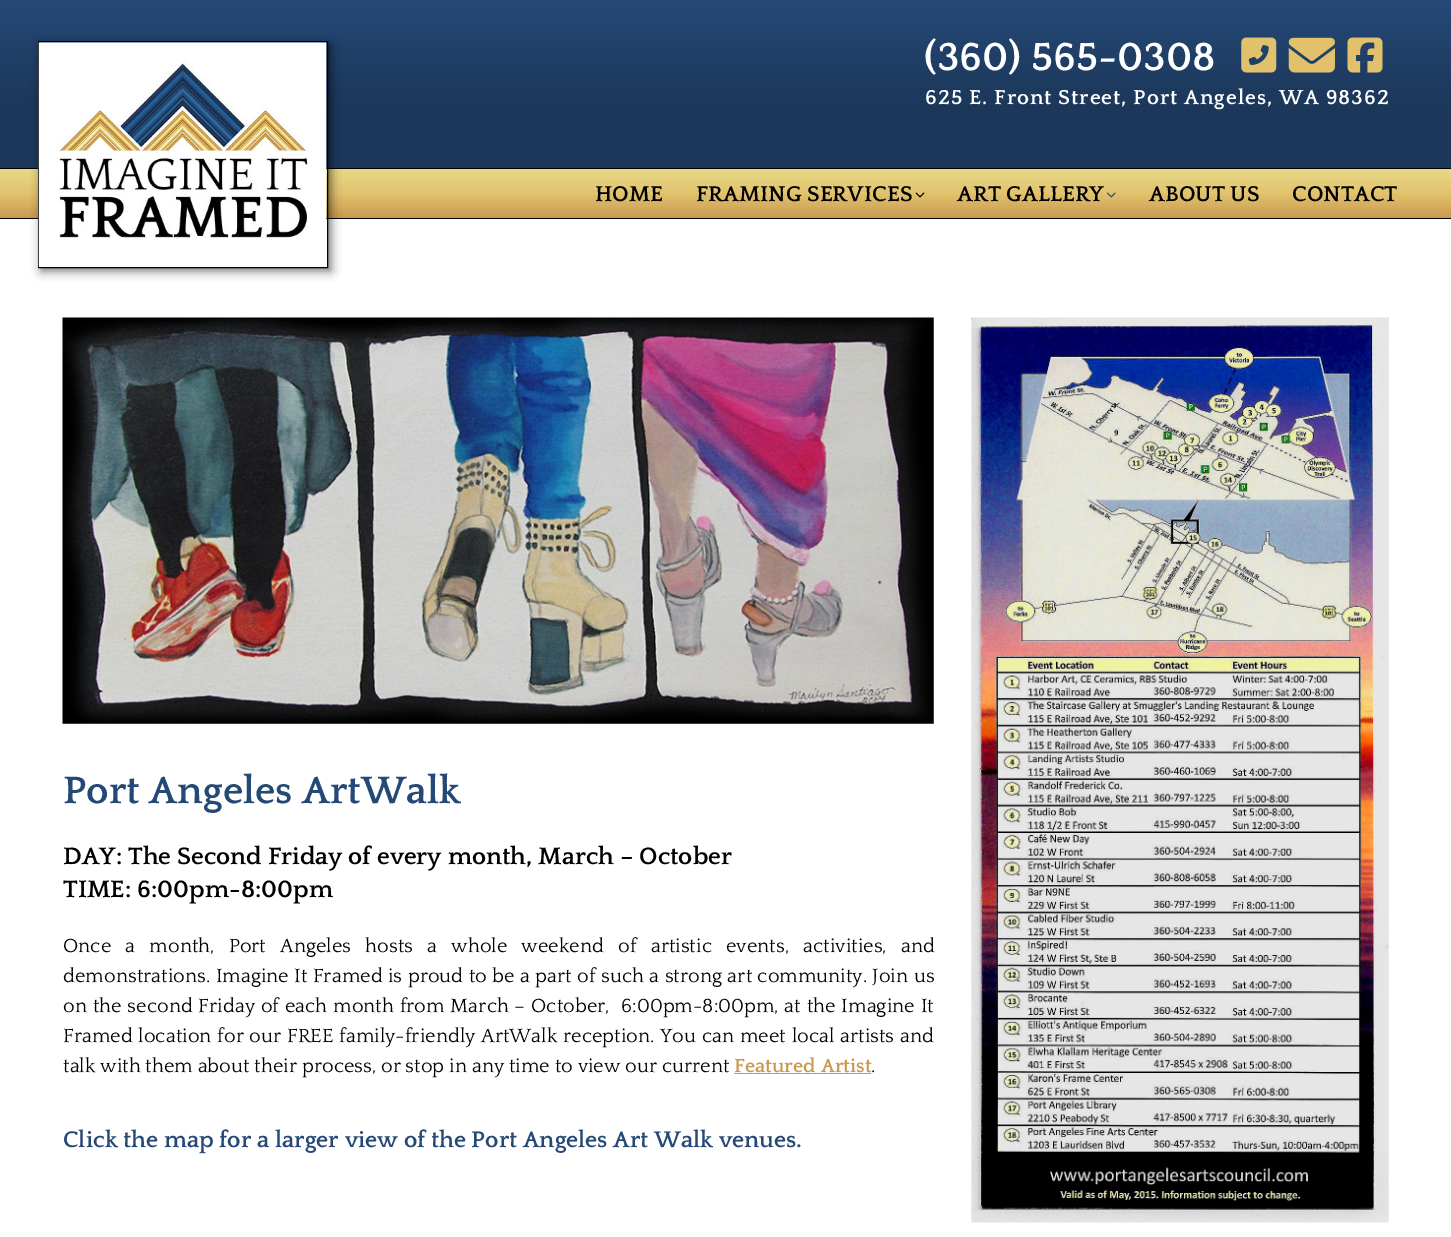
%!PS
<< /PageSize [1451 1237] /PageUsesTransparency true >> setpagedevice
/mt/moveto load def
/li/lineto load def
/cp/closepath load def
/gs/gsave load def
/gr/grestore load def
/co { dup -16 bitshift 255 div exch dup -8 bitshift 255 and 255 div exch 255 and 255 div setrgbcolor } def
/fn { [ exch dup neg 0 0 3 -1 roll 0 0 ] selectfont } def
/tx { co fn moveto show } def
/bx { co rectfill } def
/al { dup .setfillconstantalpha .setstrokeconstantalpha } def
/rr { 5 dict begin { /r /h /w /y /x } { exch def } forall
  x r add y moveto x w add y 2 copy h add r arct x w add y h add x 1 index r arct
  x y h add x y r arct x y 2 copy exch w add exch r arct closepath end } def
/sh { 12 dict begin { /a /b /q /h /w /y /x } { exch def } forall gsave /was 0 def
  9 -2 -9 { dup b mul 4 div /e exch def 1 sub .425 mul 2.718 exch exp 1 add a .99 .min exch div /now exch def
    1 1 now sub 1 was sub div sub al /was now def
    w h .min e 2 mul add 0 gt { x e sub y e sub w e 2 mul add h e 2 mul add
      q e add b .6 mul add w h .min 2 div e add .min 0 .max rr fill } if } for grestore end } def
/im { 5 dict begin { /h /w /y /x /name } { exch def } forall
  gsave x y translate w h scale
  w h 8 [w 0 0 h 0 0] name (r) file false 3 colorimage grestore end } def
0 .pushpdf14devicefilter
0 1237 translate 1 -1 scale
4 setmiterlimit
0 0 1451 1237 16#FFFFFF bx
gs 0 0 mt 1451 0 li 1451 168 li 0 168 li cp clip newpath
<< /ShadingType 2 /ColorSpace /DeviceRGB /Coords [726 0 726 216] /Extend [true true] /Function << /FunctionType 3 /Domain [0 1] /Functions [<< /FunctionType 2 /Domain [0 1] /C0 [.145 .286 .467] /C1 [.11 .216 .353] /N 1 >> << /FunctionType 2 /Domain [0 1] /C0 [.11 .216 .353] /C1 [.11 .216 .353] /N 1 >>] /Bounds [.5] /Encode [0 1 0 1] >> >> shfill gr
(media/1.raw) 1241 37 36 36 im
(media/2.raw) 1288 37 47 36 im
(media/3.raw) 1347 37 36 36 im
gs 0 169 mt 1451 169 li 1451 218 li 0 218 li cp clip newpath
<< /ShadingType 2 /ColorSpace /DeviceRGB /Coords [726 169 726 218] /Extend [true true] /Function << /FunctionType 3 /Domain [0 1] /Functions [<< /FunctionType 2 /Domain [0 1] /C0 [.91 .851 .537] /C1 [.886 .765 .427] /N 1 >> << /FunctionType 2 /Domain [0 1] /C0 [.886 .765 .427] /C1 [.784 .604 .318] /N 1 >>] /Bounds [.5] /Encode [0 1 0 1] >> >> shfill gr
0 168 1451 1 16#000000 bx
0 218 1451 1 16#000000 bx
41 45 290 226 0 5 .55 sh
38.5 41.5 289 226 rectstroke
(media/4.raw) 38 42 289 225 im
(media/5.raw) 915 192 10 6 im
(media/6.raw) 1106 192 10 6 im
(media/7.raw) 62 317 872 407 im
734 1073 137 1 16#C89A51 bx
(media/8.raw) 971 317 418 906 im
(\(360\) 565-0308) 924 70 /Quattrocento-Bold 41.25 16#FFFFFF tx
/Quattrocento-Bold 21.25 fn
925 104 mt .95 0 (625 E. Front Street, Port Angeles, WA 98362) ashow
(HOME) 595 201 /Quattrocento-Bold 22.5 16#000000 tx
(FRAMING SERVICES) 696 201 /Quattrocento-Bold 22.5 16#000000 tx
(ART GALLERY) 957 201 /Quattrocento-Bold 22.5 16#000000 tx
(ABOUT US) 1149 201 /Quattrocento-Bold 22.5 16#000000 tx
(CONTACT) 1292 201 /Quattrocento-Bold 22.5 16#000000 tx
(Port Angeles ArtWalk) 63 803 /Quattrocento-Bold 40 16#254977 tx
(DAY: The Second Friday of every month, March – October) 63 864 /Quattrocento-Bold 25 16#000000 tx
(TIME: 6:00pm-8:00pm) 63 897 /Quattrocento-Bold 25 16#000000 tx
/Quattrocento-Regular 20 fn
63 952 mt 9.4 0 32 (Once a month, Port Angeles hosts a whole weekend of artistic events, activities, and) widthshow
63 982 mt .6 0 32 (demonstrations. Imagine It Framed is proud to be a part of such a strong art community. Join us) widthshow
63 1012 mt 1 0 32 (on the second Friday of each month from March – October,  6:00pm-8:00pm, at the Imagine It) widthshow
63 1042 mt 1 0 32 (Framed location for our FREE family-friendly ArtWalk reception. You can meet local artists and) widthshow
(talk with them about their process, or stop in any time to view our current) 63 1072 /Quattrocento-Regular 20 16#000000 tx
(Featured Artist) 734 1072 /Quattrocento-Bold 20 16#C89A51 tx
(.) 871 1072 /Quattrocento-Regular 20 16#000000 tx
(Click the map for a larger view of the Port Angeles Art Walk venues.) 63 1147 /Quattrocento-Bold 23.75 16#254977 tx
.poppdf14devicefilter showpage
